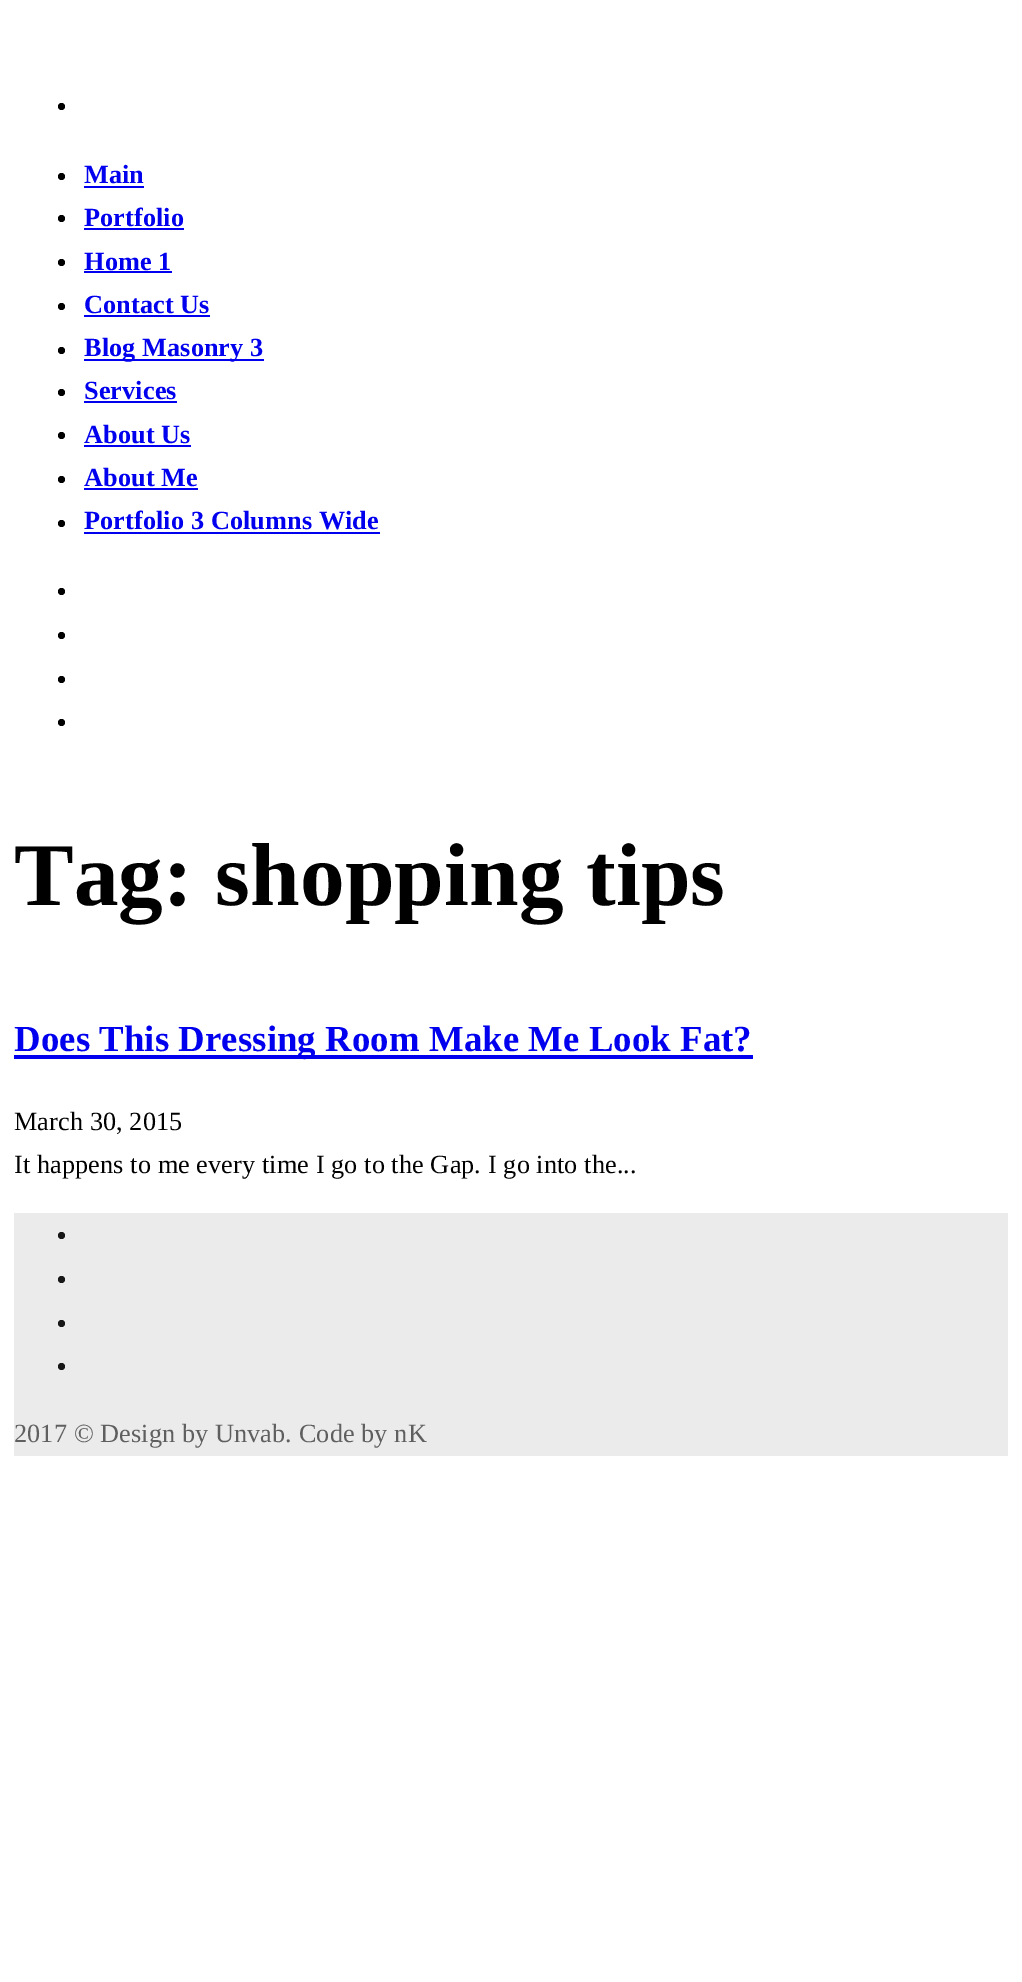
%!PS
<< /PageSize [1022 1982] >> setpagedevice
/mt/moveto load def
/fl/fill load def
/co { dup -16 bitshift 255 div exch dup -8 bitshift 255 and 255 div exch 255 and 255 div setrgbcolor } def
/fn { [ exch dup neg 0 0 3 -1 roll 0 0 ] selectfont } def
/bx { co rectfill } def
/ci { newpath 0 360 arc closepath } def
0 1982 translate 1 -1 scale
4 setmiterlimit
0 0 1022 1982 16#FFFFFF bx
16#000000 co
61.5 106.5 3.5 ci fl
61.5 176.5 3.5 ci fl
84 186 60 2 16#0000EE bx
16#000000 co
61.5 218.5 3.5 ci fl
84 228 100 2 16#0000EE bx
16#000000 co
61.5 262.5 3.5 ci fl
84 271 88 2 16#0000EE bx
16#000000 co
61.5 306.5 3.5 ci fl
84 315 126 2 16#0000EE bx
16#000000 co
61.5 350.5 3.5 ci fl
84 359 180 2 16#0000EE bx
16#000000 co
61.5 392.5 3.5 ci fl
84 401 93 2 16#0000EE bx
16#000000 co
61.5 435.5 3.5 ci fl
84 445 107 2 16#0000EE bx
16#000000 co
61.5 479.5 3.5 ci fl
84 488 114 2 16#0000EE bx
16#000000 co
61.5 523.5 3.5 ci fl
84 532 296 2 16#0000EE bx
16#000000 co
61.5 591.5 3.5 ci fl
61.5 635.5 3.5 ci fl
61.5 679.5 3.5 ci fl
61.5 722.5 3.5 ci fl
14 1055 739 4 16#0000EE bx
14 1213 994 243 16#EBEBEB bx
16#171717 co
61.5 1235.5 3.5 ci fl
61.5 1279.5 3.5 ci fl
61.5 1323.5 3.5 ci fl
61.5 1366.5 3.5 ci fl
/LiberationSerif-Bold 26.25 fn
16#0000EE co
84 183 mt .1 0 (Main) ashow
84 226 mt .1 0 (Portfolio) ashow
84 270 mt .1 0 (Home 1) ashow
84 313 mt .1 0 (Contact Us) ashow
84 356 mt .1 0 (Blog Masonry 3) ashow
84 399 mt .1 0 (Services) ashow
84 443 mt .1 0 (About Us) ashow
84 486 mt .1 0 (About Me) ashow
84 529 mt .1 0 (Portfolio 3 Columns Wide) ashow
/LiberationSerif-Bold 89.25 fn
16#000000 co
14 905 mt .1 0 (Tag: shopping tips) ashow
/LiberationSerif-Bold 36.75 fn
16#0000EE co
14 1051 mt .1 0 (Does This Dressing Room Make Me Look Fat?) ashow
/LiberationSerif-Regular 26.25 fn
16#000000 co
14 1130 mt .1 0 (March 30, 2015) ashow
14 1173 mt .1 0 (It happens to me every time I go to the Gap. I go into the...) ashow
16#5F5F5F co
14 1442 mt .1 0 (2017 © Design by Unvab. Code by nK) ashow
showpage
